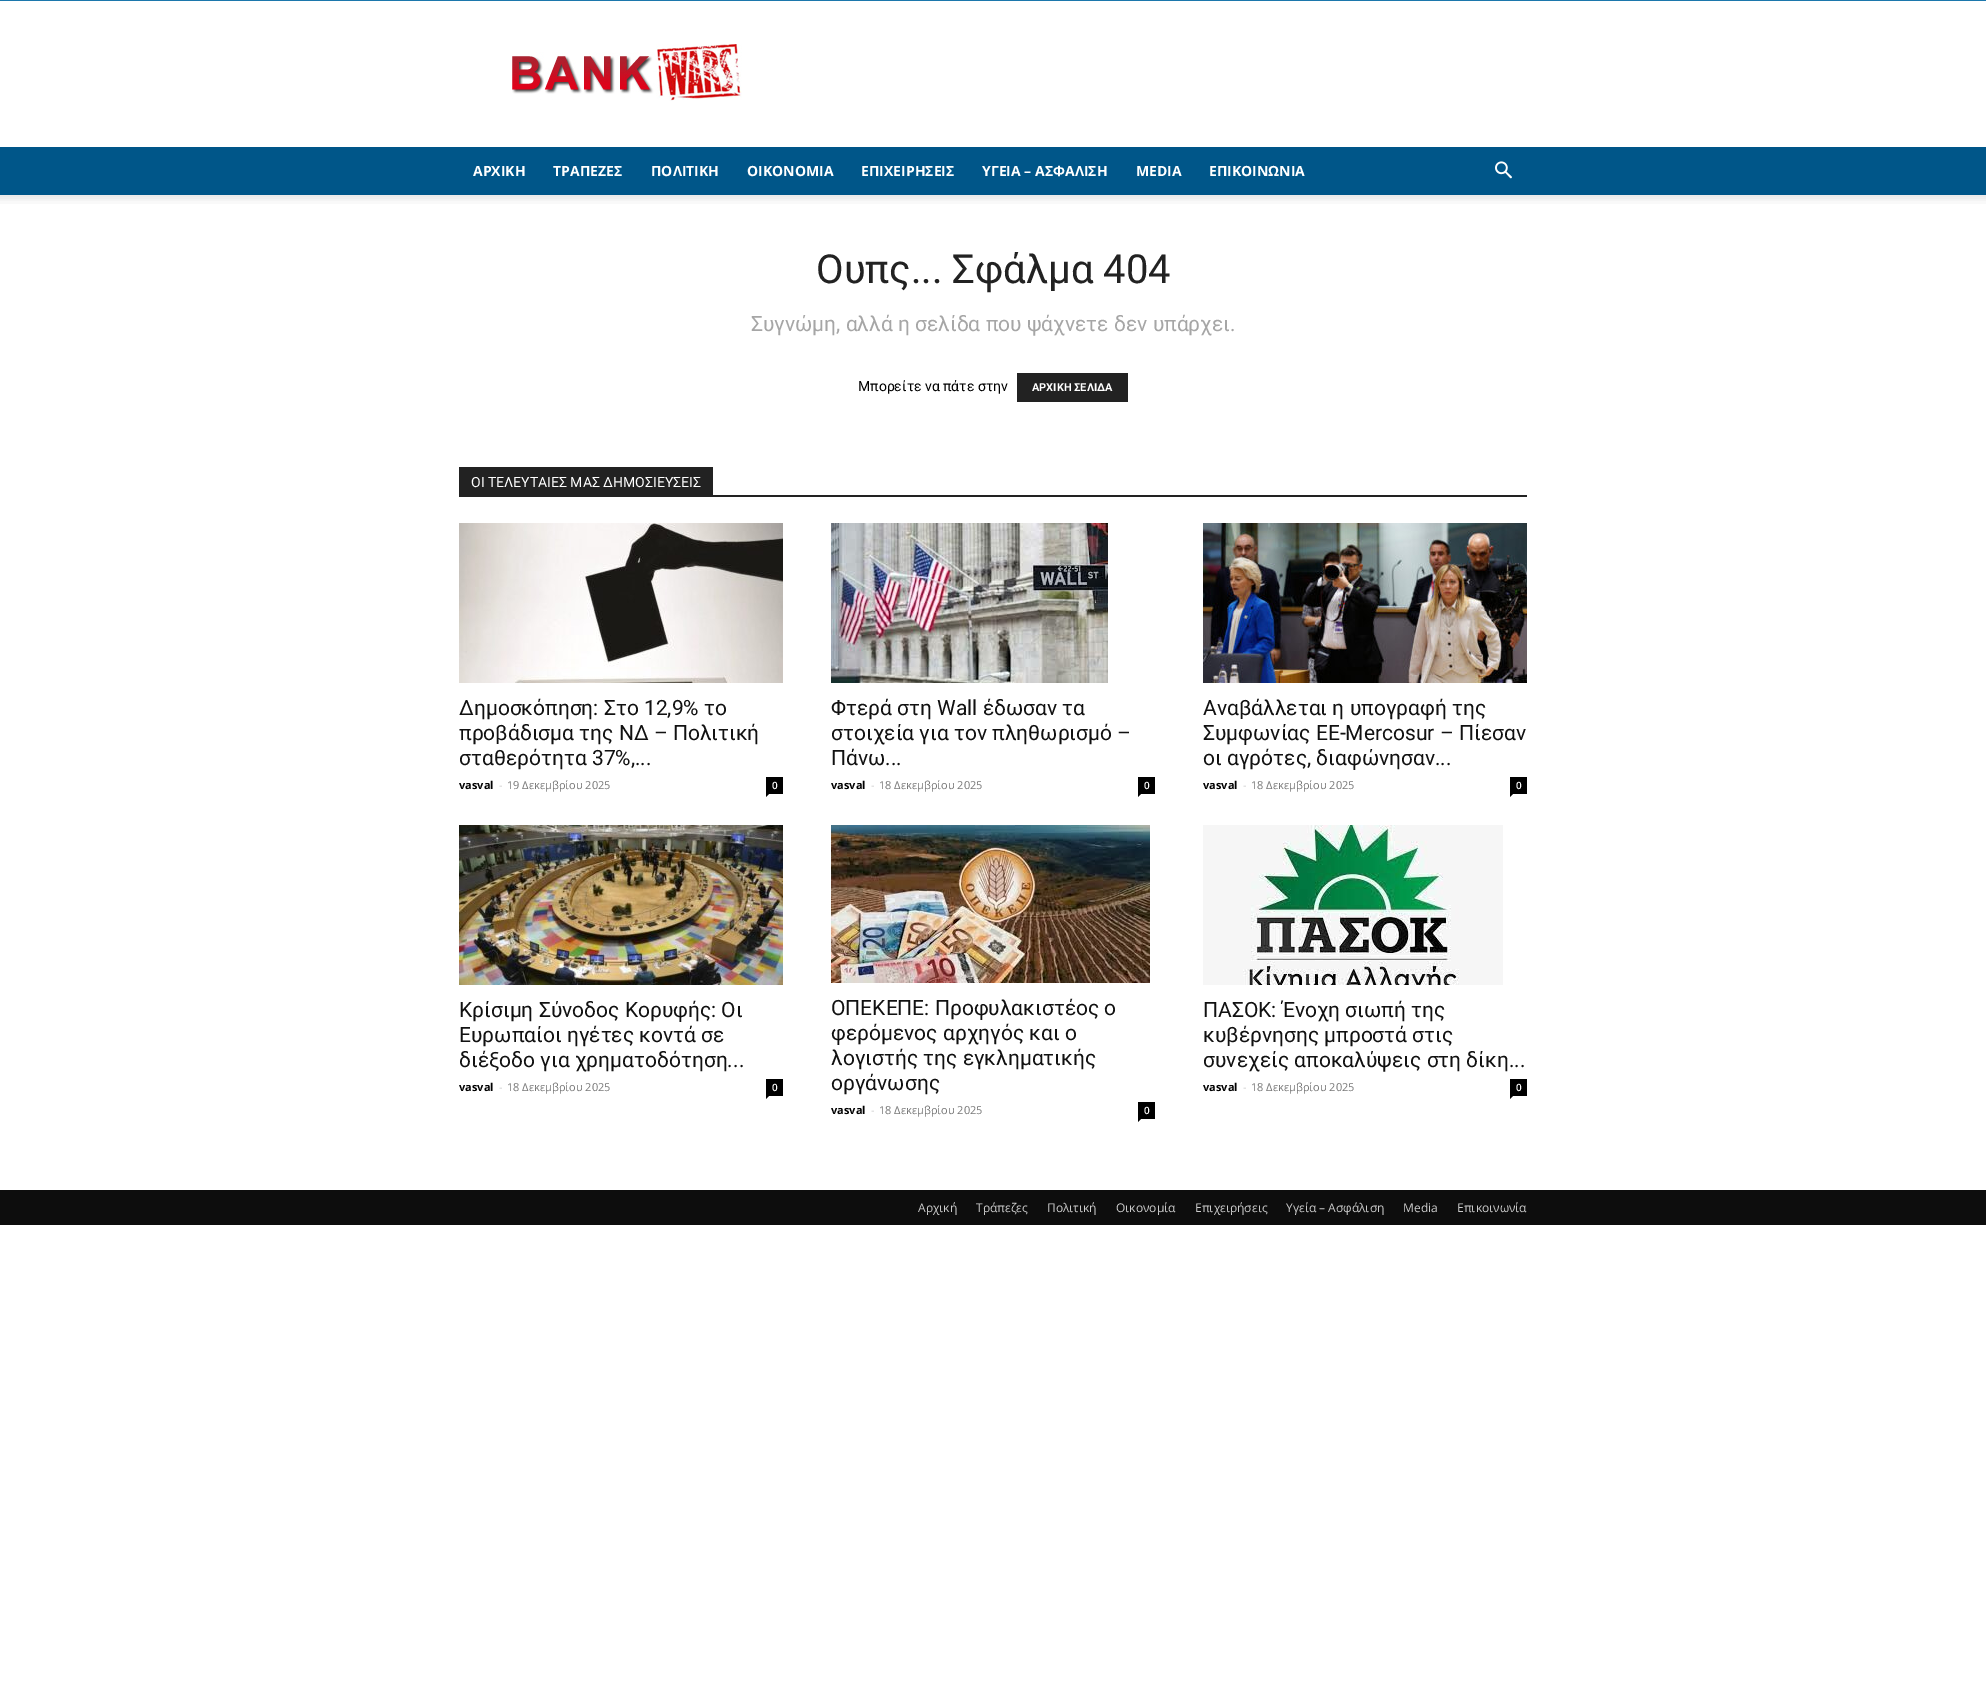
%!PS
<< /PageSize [1986 1694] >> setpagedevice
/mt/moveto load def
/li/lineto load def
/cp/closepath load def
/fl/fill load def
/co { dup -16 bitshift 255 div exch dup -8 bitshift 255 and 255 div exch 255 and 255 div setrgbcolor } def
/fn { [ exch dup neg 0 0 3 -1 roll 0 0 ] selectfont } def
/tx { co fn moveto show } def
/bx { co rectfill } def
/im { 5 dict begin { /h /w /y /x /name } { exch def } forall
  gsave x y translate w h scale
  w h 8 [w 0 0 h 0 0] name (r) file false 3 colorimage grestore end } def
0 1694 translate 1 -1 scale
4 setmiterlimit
0 0 1986 1694 16#FFFFFF bx
0 0 1986 1 16#1C77AC bx
(media/1.raw) 512 44 230 57 im
0 147 1986 48 16#005689 bx
(media/2.raw) 1495 161 17 18 im
(media/3.raw) 0 195 1986 9 im
1017 373 111 29 16#222222 bx
459 495 1068 2 16#222222 bx
459 467 254 28 16#222222 bx
(media/4.raw) 459 523 324 160 im
766 777 17 17 16#000000 bx
766 794 mt 769 794 li 766 797 li cp fl
(media/5.raw) 831 523 277 160 im
1138 777 17 17 16#000000 bx
1138 794 mt 1141 794 li 1138 797 li cp fl
(media/6.raw) 1203 523 324 160 im
1510 777 17 17 16#000000 bx
1510 794 mt 1513 794 li 1510 797 li cp fl
(media/7.raw) 459 825 324 160 im
766 1079 17 17 16#000000 bx
766 1096 mt 769 1096 li 766 1099 li cp fl
(media/8.raw) 831 825 319 158 im
1138 1102 17 17 16#000000 bx
1138 1119 mt 1141 1119 li 1138 1122 li cp fl
(media/9.raw) 1203 825 300 160 im
1510 1079 17 17 16#000000 bx
1510 1096 mt 1513 1096 li 1510 1099 li cp fl
0 1190 1986 35 16#0D0D0D bx
(ΑΡΧΙΚΗ) 473 176 /OpenSans-Bold 14 16#FFFFFF tx
(ΤΡΑΠΕΖΕΣ) 553 176 /OpenSans-Bold 14 16#FFFFFF tx
(ΠΟΛΙΤΙΚΗ) 651 176 /OpenSans-Bold 14 16#FFFFFF tx
(ΟΙΚΟΝΟΜΙΑ) 747 176 /OpenSans-Bold 14 16#FFFFFF tx
(ΕΠΙΧΕΙΡΗΣΕΙΣ) 861 176 /OpenSans-Bold 14 16#FFFFFF tx
(ΥΓΕΙΑ – ΑΣΦΑΛΙΣΗ) 982 176 /OpenSans-Bold 14 16#FFFFFF tx
(MEDIA) 1136 176 /OpenSans-Bold 14 16#FFFFFF tx
(ΕΠΙΚΟΙΝΩΝΙΑ) 1209 176 /OpenSans-Bold 14 16#FFFFFF tx
(Ουπς... Σφάλμα 404) 816 283 /Roboto-Regular 40 16#222222 tx
(Συγνώμη, αλλά η σελίδα που ψάχνετε δεν υπάρχει.) 751 331 /Roboto-Regular 21 16#A6A6A6 tx
(Μπορείτε να πάτε στην) 858 391 /Roboto-Regular 14 16#000000 tx
(ΑΡΧΙΚΗ ΣΕΛΙΔΑ) 1032 391 /Roboto-Bold 11 16#FFFFFF tx
(ΟΙ ΤΕΛΕΥΤΑΙΕΣ ΜΑΣ ΔΗΜΟΣΙΕΥΣΕΙΣ) 471 487 /Roboto-Regular 14 16#FFFFFF tx
(Δημοσκόπηση: Στο 12,9% το) 459 715 /Roboto-Regular 21 16#111111 tx
(προβάδισμα της ΝΔ – Πολιτική) 459 740 /Roboto-Regular 21 16#111111 tx
(σταθερότητα 37%,...) 459 765 /Roboto-Regular 21 16#111111 tx
(vasval) 459 789 /OpenSans-Bold 11 16#000000 tx
(-) 499 789 /OpenSans-Regular 11 16#CCCCCC tx
(19 Δεκεμβρίου 2025) 507 789 /OpenSans-Regular 11 16#767676 tx
(0) 772 789 /OpenSans-SemiBold 10 16#FFFFFF tx
(Φτερά στη Wall έδωσαν τα) 831 715 /Roboto-Regular 21 16#111111 tx
(στοιχεία για τον πληθωρισμό –) 831 740 /Roboto-Regular 21 16#111111 tx
(Πάνω...) 831 765 /Roboto-Regular 21 16#111111 tx
(vasval) 831 789 /OpenSans-Bold 11 16#000000 tx
(-) 871 789 /OpenSans-Regular 11 16#CCCCCC tx
(18 Δεκεμβρίου 2025) 879 789 /OpenSans-Regular 11 16#767676 tx
(0) 1144 789 /OpenSans-SemiBold 10 16#FFFFFF tx
(Αναβάλλεται η υπογραφή της) 1203 715 /Roboto-Regular 21 16#111111 tx
(Συμφωνίας ΕΕ-Mercosur – Πίεσαν) 1203 740 /Roboto-Regular 21 16#111111 tx
(οι αγρότες, διαφώνησαν...) 1203 765 /Roboto-Regular 21 16#111111 tx
(vasval) 1203 789 /OpenSans-Bold 11 16#000000 tx
(-) 1243 789 /OpenSans-Regular 11 16#CCCCCC tx
(18 Δεκεμβρίου 2025) 1251 789 /OpenSans-Regular 11 16#767676 tx
(0) 1516 789 /OpenSans-SemiBold 10 16#FFFFFF tx
(Κρίσιμη Σύνοδος Κορυφής: Οι) 459 1017 /Roboto-Regular 21 16#111111 tx
(Ευρωπαίοι ηγέτες κοντά σε) 459 1042 /Roboto-Regular 21 16#111111 tx
(διέξοδο για χρηματοδότηση...) 459 1067 /Roboto-Regular 21 16#111111 tx
(vasval) 459 1091 /OpenSans-Bold 11 16#000000 tx
(-) 499 1091 /OpenSans-Regular 11 16#CCCCCC tx
(18 Δεκεμβρίου 2025) 507 1091 /OpenSans-Regular 11 16#767676 tx
(0) 772 1091 /OpenSans-SemiBold 10 16#FFFFFF tx
(ΟΠΕΚΕΠΕ: Προφυλακιστέος ο) 831 1015 /Roboto-Regular 21 16#111111 tx
(φερόμενος αρχηγός και ο) 831 1040 /Roboto-Regular 21 16#111111 tx
(λογιστής της εγκληματικής) 831 1065 /Roboto-Regular 21 16#111111 tx
(οργάνωσης) 831 1090 /Roboto-Regular 21 16#111111 tx
(vasval) 831 1114 /OpenSans-Bold 11 16#000000 tx
(-) 871 1114 /OpenSans-Regular 11 16#CCCCCC tx
(18 Δεκεμβρίου 2025) 879 1114 /OpenSans-Regular 11 16#767676 tx
(0) 1144 1114 /OpenSans-SemiBold 10 16#FFFFFF tx
(ΠΑΣΟΚ: Ένοχη σιωπή της) 1203 1017 /Roboto-Regular 21 16#111111 tx
(κυβέρνησης μπροστά στις) 1203 1042 /Roboto-Regular 21 16#111111 tx
(συνεχείς αποκαλύψεις στη δίκη...) 1203 1067 /Roboto-Regular 21 16#111111 tx
(vasval) 1203 1091 /OpenSans-Bold 11 16#000000 tx
(-) 1243 1091 /OpenSans-Regular 11 16#CCCCCC tx
(18 Δεκεμβρίου 2025) 1251 1091 /OpenSans-Regular 11 16#767676 tx
(0) 1516 1091 /OpenSans-SemiBold 10 16#FFFFFF tx
(Αρχική) 918 1212 /OpenSans-Regular 12 16#CCCCCC tx
(Τράπεζες) 976 1212 /OpenSans-Regular 12 16#CCCCCC tx
(Πολιτική) 1047 1212 /OpenSans-Regular 12 16#CCCCCC tx
(Οικονομία) 1116 1212 /OpenSans-Regular 12 16#CCCCCC tx
(Επιχειρήσεις) 1195 1212 /OpenSans-Regular 12 16#CCCCCC tx
(Υγεία – Ασφάλιση) 1286 1212 /OpenSans-Regular 12 16#CCCCCC tx
(Media) 1403 1212 /OpenSans-Regular 12 16#CCCCCC tx
(Επικοινωνία) 1457 1212 /OpenSans-Regular 12 16#CCCCCC tx
showpage
